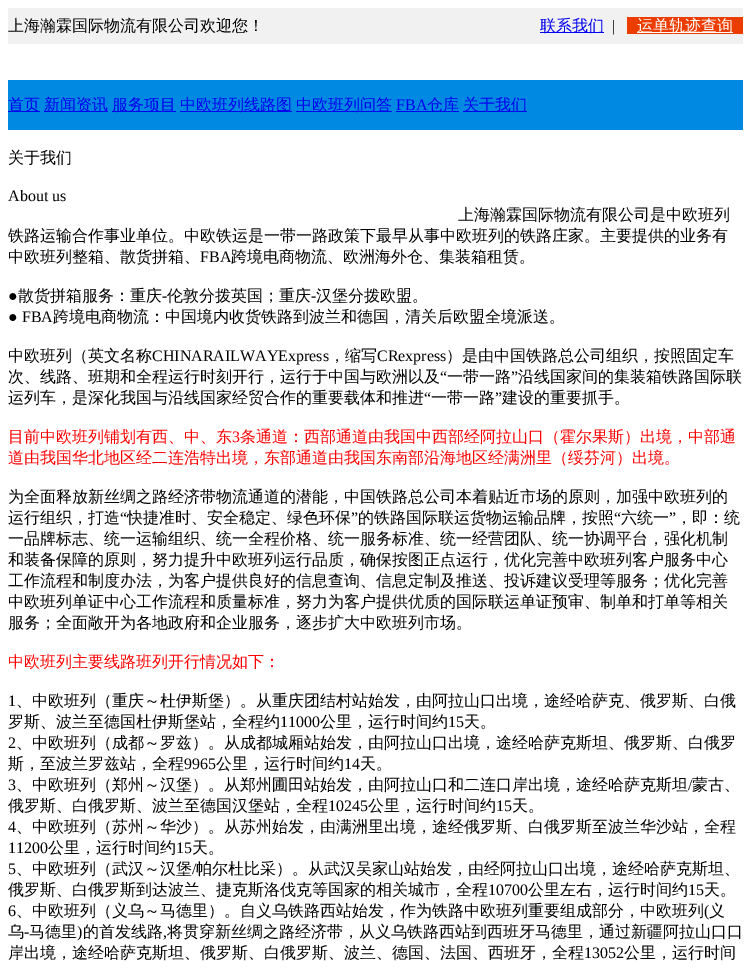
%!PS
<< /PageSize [751 972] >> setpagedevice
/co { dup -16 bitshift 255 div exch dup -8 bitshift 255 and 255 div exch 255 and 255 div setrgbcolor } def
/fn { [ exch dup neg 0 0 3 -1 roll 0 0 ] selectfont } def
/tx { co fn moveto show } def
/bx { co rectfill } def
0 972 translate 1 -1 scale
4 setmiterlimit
0 0 751 972 16#FFFFFF bx
8 8 735 36 16#F1F1F1 bx
540 32 64 1 16#0000EE bx
627 17 116 17 16#EB3D00 bx
637 32 96 1 16#FFFFFF bx
8 80 735 50 16#0089E2 bx
8 111 32 1 16#0000EE bx
44 111 64 1 16#0000EE bx
112 111 64 1 16#0000EE bx
180 111 112 1 16#0000EE bx
296 111 96 1 16#0000EE bx
396 111 63 1 16#0000EE bx
463 111 64 1 16#0000EE bx
(上海瀚霖国际物流有限公司欢迎您！) 8 31 /WenQuanYiZenHei-Medium 16 16#000000 tx
(联系我们) 540 31 /WenQuanYiZenHei-Medium 16 16#0000EE tx
(|) 612 31 /LiberationSerif-Regular 16 16#000000 tx
(运单轨迹查询) 637 31 /WenQuanYiZenHei-Medium 16 16#FFFFFF tx
(首页) 8 110 /WenQuanYiZenHei-Medium 16 16#0000EE tx
(新闻资讯) 44 110 /WenQuanYiZenHei-Medium 16 16#0000EE tx
(服务项目) 112 110 /WenQuanYiZenHei-Medium 16 16#0000EE tx
(中欧班列线路图) 180 110 /WenQuanYiZenHei-Medium 16 16#0000EE tx
(中欧班列问答) 296 110 /WenQuanYiZenHei-Medium 16 16#0000EE tx
(FBA) 396 110 /LiberationSerif-Regular 16 16#0000EE tx
(仓库) 427 110 /WenQuanYiZenHei-Medium 16 16#0000EE tx
(关于我们) 463 110 /WenQuanYiZenHei-Medium 16 16#0000EE tx
(关于我们) 8 163 /WenQuanYiZenHei-Medium 16 16#000000 tx
(About us) 8 201 /LiberationSerif-Regular 16 16#000000 tx
(上海瀚霖国际物流有限公司是中欧班列) 458 220 /WenQuanYiZenHei-Medium 16 16#000000 tx
(铁路运输合作事业单位。中欧铁运是一带一路政策下最早从事中欧班列的铁路庄家。主要提供的业务有) 8 241 /WenQuanYiZenHei-Medium 16 16#000000 tx
(中欧班列整箱、散货拼箱、) 8 262 /WenQuanYiZenHei-Medium 16 16#000000 tx
(FBA) 200 262 /LiberationSerif-Regular 16 16#000000 tx
(跨境电商物流、欧洲海外仓、集装箱租赁。) 231 262 /WenQuanYiZenHei-Medium 16 16#000000 tx
(●) 8 301 /LiberationSerif-Regular 16 16#000000 tx
(散货拼箱服务：重庆) 18 301 /WenQuanYiZenHei-Medium 16 16#000000 tx
(-) 162 301 /LiberationSerif-Regular 16 16#000000 tx
(伦敦分拨英国；重庆) 167 301 /WenQuanYiZenHei-Medium 16 16#000000 tx
(-) 311 301 /LiberationSerif-Regular 16 16#000000 tx
(汉堡分拨欧盟。) 316 301 /WenQuanYiZenHei-Medium 16 16#000000 tx
(● FBA) 8 322 /LiberationSerif-Regular 16 16#000000 tx
(跨境电商物流：中国境内收货铁路到波兰和德国，清关后欧盟全境派送。) 53 322 /WenQuanYiZenHei-Medium 16 16#000000 tx
(中欧班列（英文名称) 8 361 /WenQuanYiZenHei-Medium 16 16#000000 tx
(CHINARAILWAYExpress) 152 361 /LiberationSerif-Regular 16 16#000000 tx
(，缩写) 329 361 /WenQuanYiZenHei-Medium 16 16#000000 tx
(CRexpress) 377 361 /LiberationSerif-Regular 16 16#000000 tx
(）是由中国铁路总公司组织，按照固定车) 446 361 /WenQuanYiZenHei-Medium 16 16#000000 tx
(次、线路、班期和全程运行时刻开行，运行于中国与欧洲以及) 8 382 /WenQuanYiZenHei-Medium 16 16#000000 tx
(“) 440 382 /LiberationSerif-Regular 16 16#000000 tx
(一带一路) 447 382 /WenQuanYiZenHei-Medium 16 16#000000 tx
(”) 511 382 /LiberationSerif-Regular 16 16#000000 tx
(沿线国家间的集装箱铁路国际联) 518 382 /WenQuanYiZenHei-Medium 16 16#000000 tx
(运列车，是深化我国与沿线国家经贸合作的重要载体和推进) 8 403 /WenQuanYiZenHei-Medium 16 16#000000 tx
(“) 424 403 /LiberationSerif-Regular 16 16#000000 tx
(一带一路) 431 403 /WenQuanYiZenHei-Medium 16 16#000000 tx
(”) 495 403 /LiberationSerif-Regular 16 16#000000 tx
(建设的重要抓手。) 502 403 /WenQuanYiZenHei-Medium 16 16#000000 tx
(目前中欧班列铺划有西、中、东) 8 442 /WenQuanYiZenHei-Medium 16 16#FF0000 tx
(3) 232 442 /LiberationSerif-Regular 16 16#FF0000 tx
(条通道：西部通道由我国中西部经阿拉山口（霍尔果斯）出境，中部通) 240 442 /WenQuanYiZenHei-Medium 16 16#FF0000 tx
(道由我国华北地区经二连浩特出境，东部通道由我国东南部沿海地区经满洲里（绥芬河）出境。) 8 463 /WenQuanYiZenHei-Medium 16 16#FF0000 tx
(为全面释放新丝绸之路经济带物流通道的潜能，中国铁路总公司本着贴近市场的原则，加强中欧班列的) 8 502 /WenQuanYiZenHei-Medium 16 16#000000 tx
(运行组织，打造) 8 523 /WenQuanYiZenHei-Medium 16 16#000000 tx
(“) 120 523 /LiberationSerif-Regular 16 16#000000 tx
(快捷准时、安全稳定、绿色环保) 127 523 /WenQuanYiZenHei-Medium 16 16#000000 tx
(”) 351 523 /LiberationSerif-Regular 16 16#000000 tx
(的铁路国际联运货物运输品牌，按照) 358 523 /WenQuanYiZenHei-Medium 16 16#000000 tx
(“) 614 523 /LiberationSerif-Regular 16 16#000000 tx
(六统一) 621 523 /WenQuanYiZenHei-Medium 16 16#000000 tx
(”) 669 523 /LiberationSerif-Regular 16 16#000000 tx
(，即：统) 676 523 /WenQuanYiZenHei-Medium 16 16#000000 tx
(一品牌标志、统一运输组织、统一全程价格、统一服务标准、统一经营团队、统一协调平台，强化机制) 8 544 /WenQuanYiZenHei-Medium 16 16#000000 tx
(和装备保障的原则，努力提升中欧班列运行品质，确保按图正点运行，优化完善中欧班列客户服务中心) 8 565 /WenQuanYiZenHei-Medium 16 16#000000 tx
(工作流程和制度办法，为客户提供良好的信息查询、信息定制及推送、投诉建议受理等服务；优化完善) 8 586 /WenQuanYiZenHei-Medium 16 16#000000 tx
(中欧班列单证中心工作流程和质量标准，努力为客户提供优质的国际联运单证预审、制单和打单等相关) 8 607 /WenQuanYiZenHei-Medium 16 16#000000 tx
(服务；全面敞开为各地政府和企业服务，逐步扩大中欧班列市场。) 8 628 /WenQuanYiZenHei-Medium 16 16#000000 tx
(中欧班列主要线路班列开行情况如下：) 8 667 /WenQuanYiZenHei-Medium 16 16#FF0000 tx
(1) 8 706 /LiberationSerif-Regular 16 16#000000 tx
(、中欧班列（重庆～杜伊斯堡）。从重庆团结村站始发，由阿拉山口出境，途经哈萨克、俄罗斯、白俄) 16 706 /WenQuanYiZenHei-Medium 16 16#000000 tx
(罗斯、波兰至德国杜伊斯堡站，全程约) 8 727 /WenQuanYiZenHei-Medium 16 16#000000 tx
(11000) 280 727 /LiberationSerif-Regular 16 16#000000 tx
(公里，运行时间约) 320 727 /WenQuanYiZenHei-Medium 16 16#000000 tx
(15) 448 727 /LiberationSerif-Regular 16 16#000000 tx
(天。) 464 727 /WenQuanYiZenHei-Medium 16 16#000000 tx
(2) 8 748 /LiberationSerif-Regular 16 16#000000 tx
(、中欧班列（成都～罗兹）。从成都城厢站始发，由阿拉山口出境，途经哈萨克斯坦、俄罗斯、白俄罗) 16 748 /WenQuanYiZenHei-Medium 16 16#000000 tx
(斯，至波兰罗兹站，全程) 8 769 /WenQuanYiZenHei-Medium 16 16#000000 tx
(9965) 184 769 /LiberationSerif-Regular 16 16#000000 tx
(公里，运行时间约) 216 769 /WenQuanYiZenHei-Medium 16 16#000000 tx
(14) 344 769 /LiberationSerif-Regular 16 16#000000 tx
(天。) 360 769 /WenQuanYiZenHei-Medium 16 16#000000 tx
(3) 8 790 /LiberationSerif-Regular 16 16#000000 tx
(、中欧班列（郑州～汉堡）。从郑州圃田站始发，由阿拉山口和二连口岸出境，途经哈萨克斯坦) 16 790 /WenQuanYiZenHei-Medium 16 16#000000 tx
(/) 688 790 /LiberationSerif-Regular 16 16#000000 tx
(蒙古、) 692 790 /WenQuanYiZenHei-Medium 16 16#000000 tx
(俄罗斯、白俄罗斯、波兰至德国汉堡站，全程) 8 811 /WenQuanYiZenHei-Medium 16 16#000000 tx
(10245) 328 811 /LiberationSerif-Regular 16 16#000000 tx
(公里，运行时间约) 368 811 /WenQuanYiZenHei-Medium 16 16#000000 tx
(15) 496 811 /LiberationSerif-Regular 16 16#000000 tx
(天。) 512 811 /WenQuanYiZenHei-Medium 16 16#000000 tx
(4) 8 832 /LiberationSerif-Regular 16 16#000000 tx
(、中欧班列（苏州～华沙）。从苏州始发，由满洲里出境，途经俄罗斯、白俄罗斯至波兰华沙站，全程) 16 832 /WenQuanYiZenHei-Medium 16 16#000000 tx
(11200) 8 853 /LiberationSerif-Regular 16 16#000000 tx
(公里，运行时间约) 48 853 /WenQuanYiZenHei-Medium 16 16#000000 tx
(15) 176 853 /LiberationSerif-Regular 16 16#000000 tx
(天。) 192 853 /WenQuanYiZenHei-Medium 16 16#000000 tx
(5) 8 874 /LiberationSerif-Regular 16 16#000000 tx
(、中欧班列（武汉～汉堡) 16 874 /WenQuanYiZenHei-Medium 16 16#000000 tx
(/) 192 874 /LiberationSerif-Regular 16 16#000000 tx
(帕尔杜比采）。从武汉吴家山站始发，由经阿拉山口出境，途经哈萨克斯坦、) 196 874 /WenQuanYiZenHei-Medium 16 16#000000 tx
(俄罗斯、白俄罗斯到达波兰、捷克斯洛伐克等国家的相关城市，全程) 8 895 /WenQuanYiZenHei-Medium 16 16#000000 tx
(10700) 488 895 /LiberationSerif-Regular 16 16#000000 tx
(公里左右，运行时间约) 528 895 /WenQuanYiZenHei-Medium 16 16#000000 tx
(15) 688 895 /LiberationSerif-Regular 16 16#000000 tx
(天。) 704 895 /WenQuanYiZenHei-Medium 16 16#000000 tx
(6) 8 916 /LiberationSerif-Regular 16 16#000000 tx
(、中欧班列（义乌～马德里）。自义乌铁路西站始发，作为铁路中欧班列重要组成部分，中欧班列) 16 916 /WenQuanYiZenHei-Medium 16 16#000000 tx
(\() 704 916 /LiberationSerif-Regular 16 16#000000 tx
(义) 709 916 /WenQuanYiZenHei-Medium 16 16#000000 tx
(乌) 8 937 /WenQuanYiZenHei-Medium 16 16#000000 tx
(-) 24 937 /LiberationSerif-Regular 16 16#000000 tx
(马德里) 29 937 /WenQuanYiZenHei-Medium 16 16#000000 tx
(\)) 77 937 /LiberationSerif-Regular 16 16#000000 tx
(的首发线路) 83 937 /WenQuanYiZenHei-Medium 16 16#000000 tx
(将贯穿新丝绸之路经济带，从义乌铁路西站到西班牙马德里，通过新疆阿拉山口口) 167 937 /WenQuanYiZenHei-Medium 16 16#000000 tx
(,) 163 937 /LiberationSerif-Regular 16 16#000000 tx
(岸出境，途经哈萨克斯坦、俄罗斯、白俄罗斯、波兰、德国、法国、西班牙，全程) 8 958 /WenQuanYiZenHei-Medium 16 16#000000 tx
(13052) 584 958 /LiberationSerif-Regular 16 16#000000 tx
(公里，运行时间) 624 958 /WenQuanYiZenHei-Medium 16 16#000000 tx
showpage
